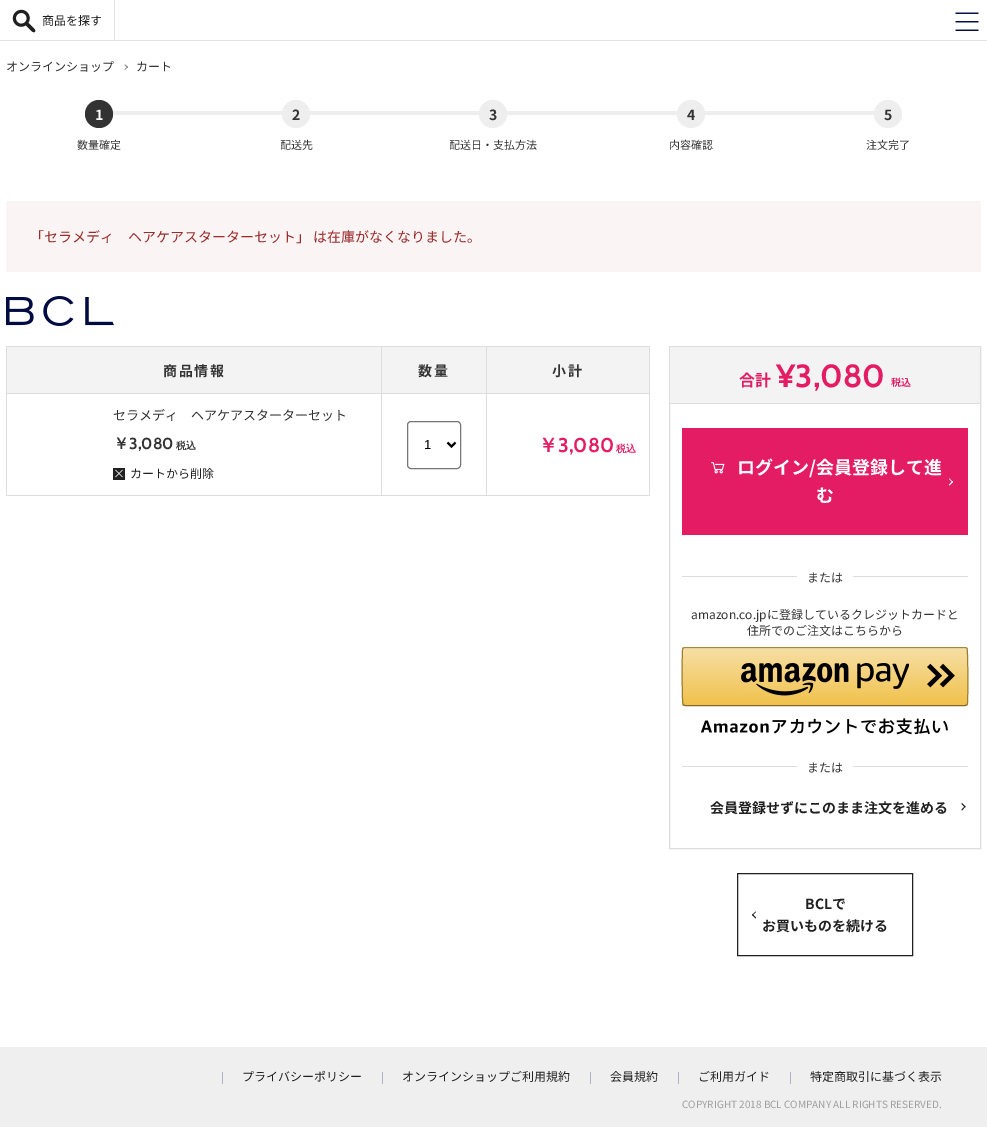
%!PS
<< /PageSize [987 1127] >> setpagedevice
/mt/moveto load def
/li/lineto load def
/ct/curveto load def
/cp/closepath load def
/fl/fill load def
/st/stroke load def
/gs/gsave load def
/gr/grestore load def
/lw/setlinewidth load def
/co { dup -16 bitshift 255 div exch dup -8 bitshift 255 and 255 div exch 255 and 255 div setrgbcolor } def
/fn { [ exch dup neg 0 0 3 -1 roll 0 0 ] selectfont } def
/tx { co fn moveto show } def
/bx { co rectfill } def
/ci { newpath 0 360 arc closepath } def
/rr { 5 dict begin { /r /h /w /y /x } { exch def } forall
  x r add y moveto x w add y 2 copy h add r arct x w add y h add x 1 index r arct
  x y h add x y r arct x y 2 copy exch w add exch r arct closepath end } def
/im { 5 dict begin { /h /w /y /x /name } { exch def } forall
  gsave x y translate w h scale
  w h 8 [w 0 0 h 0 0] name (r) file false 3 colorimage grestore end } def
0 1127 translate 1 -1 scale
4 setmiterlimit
0 0 987 1127 16#FFFFFF bx
0 40 987 1 16#E3E3E3 bx
114 0 1 40 16#E3E3E3 bx
(media/1.raw) 12 9 24 24 im
(media/2.raw) 955 12 24 19 im
16#888888 co
124.5 65 mt 125 64.5 li 128 67 li 127.5 68 li cp fl
124.5 69.5 mt 127.5 66.5 li 128 67 li 125 70 li cp fl
110 111 173 4 16#EEEEEE bx
16#333333 co
99 114 14 ci fl
308 111 172 4 16#EEEEEE bx
296 114 14 ci fl
505 111 173 4 16#EEEEEE bx
493 114 14 ci fl
703 111 172 4 16#EEEEEE bx
691 114 14 ci fl
888 114 14 ci fl
6 201 975 71 16#FAF4F4 bx
(media/3.raw) 6 296 108 30 im
7 347 374 46 16#F3F3F3 bx
486 346 164 1 16#DDDDDD bx
649 393 1 103 16#DDDDDD bx
649 346 1 48 16#DDDDDD bx
486 495 164 1 16#DDDDDD bx
486 393 1 103 16#DDDDDD bx
486 393 164 1 16#DDDDDD bx
486 346 1 48 16#DDDDDD bx
381 346 106 1 16#DDDDDD bx
381 495 106 1 16#DDDDDD bx
381 393 1 103 16#DDDDDD bx
381 393 106 1 16#DDDDDD bx
381 346 1 48 16#DDDDDD bx
6 346 376 1 16#DDDDDD bx
6 495 376 1 16#DDDDDD bx
6 393 1 103 16#DDDDDD bx
6 393 376 1 16#DDDDDD bx
6 346 1 48 16#DDDDDD bx
382 347 104 46 16#F3F3F3 bx
487 347 162 46 16#F3F3F3 bx
113 468 12 12 16#202020 bx
(media/4.raw) 115 469 8 9 im
16#777777 co
407.5 421.5 53 47 3.5 rr st
16#000000 co
2 lw
447.5 442.5 mt 451.5 446.5 li 455.5 442.5 li st
16#DDDDDD co
1 lw
669.5 346.5 311 502 rectstroke
670 347 310 56 16#F3F3F3 bx
670 403 310 1 16#DDDDDD bx
682 428 286 107 16#E41C64 bx
(media/5.raw) 711 462 14 12 im
16#FFFFFF co
949.5 478.5 mt 953 482 li 952.5 482.5 li 949 479 li cp fl
952.5 481 mt 953 482 li 949.5 485.5 li 949 484.5 li cp fl
682 576 286 1 16#DDDDDD bx
797 576 56 1 16#FFFFFF bx
gs
682 647 286 59 3 rr clip newpath
gs 682 648 mt 968 648 li 968 705 li 682 705 li cp clip newpath
<< /ShadingType 2 /ColorSpace /DeviceRGB /Coords [825 648 825 705] /Extend [true true] /Function << /FunctionType 2 /Domain [0 1] /C0 [.969 .875 .647] /C1 [.941 .757 .294] /N 1 >> >> shfill gr
gr
16#FAECC8 co
685 649 mt 965 649 li 966 649 967 650 967 651 ct 967 650 967 648 965 648 ct 685 648 li 683 648 683 650 683 651 ct 683 650 684 649 685 649 ct cp fl
16#A88734 co
683 648 mt 685 647.5 li 965 647.5 li 967 648 li st
16#9C7E31 co
967 648 mt 967 648.5 li 968 649.5 968 698.5 967.5 703 ct 967 705 li st
16#846A29 co
967 705 mt 965 705.5 li 685 705.5 li 683 705 li st
16#9C7E31 co
683 705 mt 683 704.5 li 682 703.5 682 654.5 682.5 650 ct 683 648 li st
(media/6.raw) 741 663 168 33 im
(media/7.raw) 927 663 28 25 im
(media/8.raw) 700 718 248 17 im
682 766 286 1 16#DDDDDD bx
797 766 56 1 16#FFFFFF bx
16#202020 co
962 803 mt 965.5 806.5 li 965 807.5 li 961.5 804 li cp fl
965 806 mt 965.5 806.5 li 962 810.5 li 961.5 809.5 li cp fl
737.5 873.5 175 82 rectstroke
16#212121 co
755.5 918.5 mt 752 915 li 752.5 914 li 756 917.5 li cp fl
16#202020 co
752.5 915.5 mt 752 915 li 755.5 911.5 li 756 912 li cp fl
0 1047 987 80 16#EFEFEF bx
222 1072 1 12 16#AFB2C1 bx
382 1072 1 12 16#AFB2C1 bx
590 1072 1 12 16#AFB2C1 bx
678 1072 1 12 16#AFB2C1 bx
790 1072 1 12 16#AFB2C1 bx
(商品を探す) 42 25 /NotoSansJP-Regular 12 16#202020 tx
(オンラインショップ) 6 71 /NotoSansJP-Regular 12 16#333333 tx
(カート) 136 71 /NotoSansJP-Regular 12 16#333333 tx
(1) 95 120 /NotoSansJP-Bold 14 16#FFFFFF tx
(数量確定) 77 149 /NotoSansJP-Regular 11 16#333333 tx
(2) 292 120 /NotoSansJP-Bold 14 16#333333 tx
(配送先) 280 149 /NotoSansJP-Regular 11 16#333333 tx
(3) 489 120 /NotoSansJP-Bold 14 16#333333 tx
(配送日・支払方法) 449 149 /NotoSansJP-Regular 11 16#333333 tx
(4) 687 120 /NotoSansJP-Bold 14 16#333333 tx
(内容確認) 669 149 /NotoSansJP-Regular 11 16#333333 tx
(5) 884 120 /NotoSansJP-Bold 14 16#333333 tx
(注文完了) 866 149 /NotoSansJP-Regular 11 16#333333 tx
(「セラメディ　ヘアケアスターターセット」 は在庫がなくなりました。) 30 242 /NotoSansJP-Regular 14 16#9B2A2A tx
/NotoSansJP-Bold 14 fn
16#333333 co
163 376 mt 1.5 0 (商品情報) ashow
418 376 mt 1.5 0 (数量) ashow
552 376 mt 1.5 0 (小計) ashow
(セラメディ　ヘアケアスターターセット) 113 420 /NotoSansJP-Regular 13 16#333333 tx
(￥) 113 449 /WenQuanYiZenHei-Bold 16 16#333333 tx
(3,080) 129 449 /Cabin-Bold 16 16#333333 tx
(税込) 176 449 /WenQuanYiZenHei-Bold 10 16#333333 tx
(カートから削除) 130 478 /NotoSansJP-Regular 12 16#202020 tx
(1) 424 449 /LiberationSans-Regular 13 16#000000 tx
(￥) 538 452 /WenQuanYiZenHei-Bold 20 16#E41C64 tx
(3,080) 558 452 /Cabin-Bold 20 16#E41C64 tx
(税込) 616 452 /WenQuanYiZenHei-Bold 10 16#E41C64 tx
(合計) 739 386 /NotoSansJP-Bold 16 16#E41C64 tx
(¥3,080) 776 387 /Cabin-Bold 32 16#E41C64 tx
(税込) 891 386 /NotoSansJP-Bold 10 16#E41C64 tx
(ログイン/会員登録して進) 737 474 /NotoSansJP-Bold 18 16#FFFFFF tx
(む) 816 502 /NotoSansJP-Bold 18 16#FFFFFF tx
(または) 807 582 /NotoSansJP-Regular 12 16#333333 tx
(amazon.co.jpに登録しているクレジットカードと) 691 619 /NotoSansJP-Regular 12 16#333333 tx
(住所でのご注文はこちらから) 747 635 /NotoSansJP-Regular 12 16#333333 tx
(または) 807 772 /NotoSansJP-Regular 12 16#333333 tx
(会員登録せずにこのまま注文を進める) 710 813 /NotoSansJP-Bold 14 16#202020 tx
(BCLで) 805 909 /NotoSansJP-Bold 14 16#202020 tx
(お買いものを続ける) 762 931 /NotoSansJP-Bold 14 16#202020 tx
(プライバシーポリシー) 242 1081 /NotoSansJP-Regular 12 16#202020 tx
(オンラインショップご利用規約) 402 1081 /NotoSansJP-Regular 12 16#202020 tx
(会員規約) 610 1081 /NotoSansJP-Regular 12 16#202020 tx
(ご利用ガイド) 698 1081 /NotoSansJP-Regular 12 16#202020 tx
(特定商取引に基づく表示) 810 1081 /NotoSansJP-Regular 12 16#202020 tx
(COPYRIGHT 2018 BCL COMPANY ALL RIGHTS RESERVED.) 682 1108 /NotoSansJP-Regular 10 16#A0A0A0 tx
showpage
